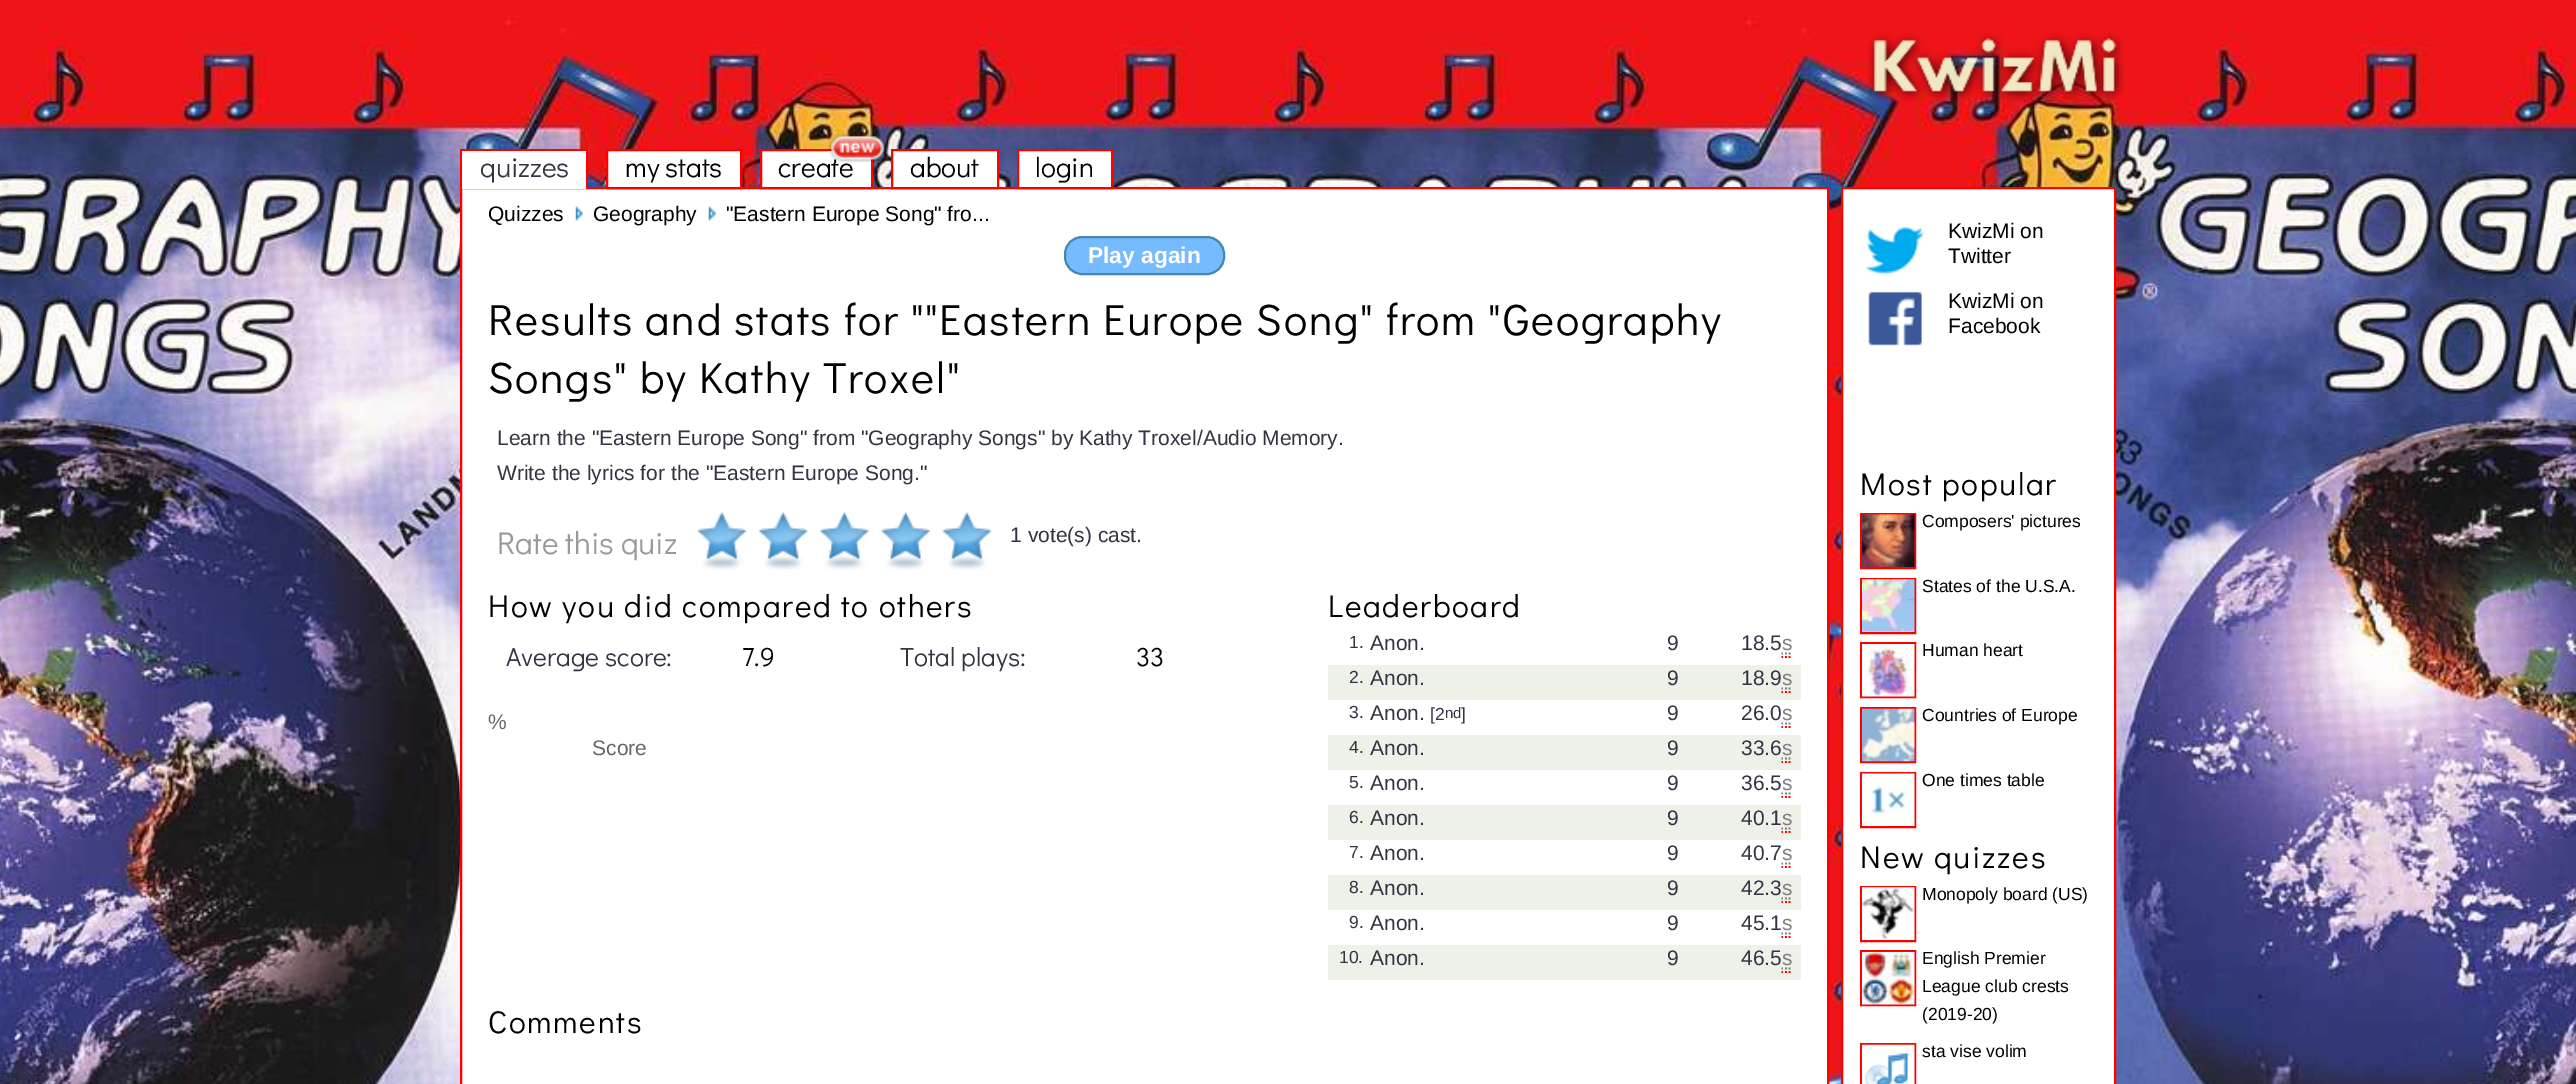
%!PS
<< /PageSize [2576 1084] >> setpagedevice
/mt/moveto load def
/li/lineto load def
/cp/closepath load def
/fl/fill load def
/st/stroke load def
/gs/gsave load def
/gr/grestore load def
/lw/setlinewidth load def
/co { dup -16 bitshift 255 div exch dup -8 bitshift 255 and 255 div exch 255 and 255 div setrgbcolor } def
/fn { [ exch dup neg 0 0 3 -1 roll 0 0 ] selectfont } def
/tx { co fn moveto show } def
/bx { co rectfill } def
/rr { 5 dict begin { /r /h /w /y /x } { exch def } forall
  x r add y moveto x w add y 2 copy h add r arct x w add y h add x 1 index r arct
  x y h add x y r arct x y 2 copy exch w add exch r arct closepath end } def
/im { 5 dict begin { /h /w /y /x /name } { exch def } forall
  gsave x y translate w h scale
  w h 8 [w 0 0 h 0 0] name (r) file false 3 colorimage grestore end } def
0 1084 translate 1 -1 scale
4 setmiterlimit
0 0 2576 1084 16#FFFFFF bx
(media/1.raw) 0 0 2576 1084 im
(media/2.raw) 1867 33 258 69 im
461 188 mt 1828 188 li 1828 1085 li 461 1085 li cp gs fl gr
16#FF0000 co
2 lw
st
462 151 124 38 16#FFFFFF bx
460 149 128 2 16#FF0000 bx
586 149 2 40 16#FF0000 bx
460 149 2 40 16#FF0000 bx
16#FFFFFF co
607 150 mt 741 150 li 741 188 li 607 188 li cp gs fl gr
16#FF0000 co
st
16#FFFFFF co
761 150 mt 872 150 li 872 188 li 761 188 li cp gs fl gr
16#FF0000 co
st
16#FFFFFF co
892 150 mt 998 150 li 998 188 li 892 188 li cp gs fl gr
16#FF0000 co
st
16#FFFFFF co
1018 150 mt 1112 150 li 1112 188 li 1018 188 li cp gs fl gr
16#FF0000 co
st
(media/4.raw) 575 206 8 15 im
(media/5.raw) 708 206 8 15 im
16#77BBFF co
1065 237 159 37 17 rr gs fl gr
16#4488AA co
st
(media/6.raw) 696 512 52 58 im
(media/7.raw) 758 512 51 58 im
(media/8.raw) 819 512 51 58 im
(media/9.raw) 880 512 51 58 im
(media/6.raw) 941 512 52 58 im
16#FF0000 co
1.8 lw
1781.5 657 mt 1783 657 li 1785 657 mt 1787 657 li 1788.5 657 mt 1790.5 657 li st
16#808080 co
1781.5 653.5 mt 1783 653.5 li 1785 653.5 mt 1787 653.5 li 1788.5 653.5 mt 1790.5 653.5 li st
1328 665 473 35 16#EEF1E7 bx
16#FF0000 co
1781.5 692 mt 1783 692 li 1785 692 mt 1787 692 li 1788.5 692 mt 1790.5 692 li st
16#808080 co
1781.5 688.5 mt 1783 688.5 li 1785 688.5 mt 1787 688.5 li 1788.5 688.5 mt 1790.5 688.5 li st
16#FF0000 co
1781.5 727 mt 1783 727 li 1785 727 mt 1787 727 li 1788.5 727 mt 1790.5 727 li st
16#808080 co
1781.5 723.5 mt 1783 723.5 li 1785 723.5 mt 1787 723.5 li 1788.5 723.5 mt 1790.5 723.5 li st
1328 735 473 35 16#EEF1E7 bx
16#FF0000 co
1781.5 762 mt 1783 762 li 1785 762 mt 1787 762 li 1788.5 762 mt 1790.5 762 li st
16#808080 co
1781.5 758.5 mt 1783 758.5 li 1785 758.5 mt 1787 758.5 li 1788.5 758.5 mt 1790.5 758.5 li st
16#FF0000 co
1781.5 797 mt 1783 797 li 1785 797 mt 1787 797 li 1788.5 797 mt 1790.5 797 li st
16#808080 co
1781.5 793.5 mt 1783 793.5 li 1785 793.5 mt 1787 793.5 li 1788.5 793.5 mt 1790.5 793.5 li st
1328 805 473 35 16#EEF1E7 bx
16#FF0000 co
1781.5 832 mt 1783 832 li 1785 832 mt 1787 832 li 1788.5 832 mt 1790.5 832 li st
16#808080 co
1781.5 828.5 mt 1783 828.5 li 1785 828.5 mt 1787 828.5 li 1788.5 828.5 mt 1790.5 828.5 li st
16#FF0000 co
1781.5 867 mt 1783 867 li 1785 867 mt 1787 867 li 1788.5 867 mt 1790.5 867 li st
16#808080 co
1781.5 863.5 mt 1783 863.5 li 1785 863.5 mt 1787 863.5 li 1788.5 863.5 mt 1790.5 863.5 li st
1328 875 473 35 16#EEF1E7 bx
16#FF0000 co
1781.5 902 mt 1783 902 li 1785 902 mt 1787 902 li 1788.5 902 mt 1790.5 902 li st
16#808080 co
1781.5 898.5 mt 1783 898.5 li 1785 898.5 mt 1787 898.5 li 1788.5 898.5 mt 1790.5 898.5 li st
16#FF0000 co
1781.5 937 mt 1783 937 li 1785 937 mt 1787 937 li 1788.5 937 mt 1790.5 937 li st
16#808080 co
1781.5 933.5 mt 1783 933.5 li 1785 933.5 mt 1787 933.5 li 1788.5 933.5 mt 1790.5 933.5 li st
1328 945 473 35 16#EEF1E7 bx
16#FF0000 co
1781.5 972 mt 1783 972 li 1785 972 mt 1787 972 li 1788.5 972 mt 1790.5 972 li st
16#808080 co
1781.5 968.5 mt 1783 968.5 li 1785 968.5 mt 1787 968.5 li 1788.5 968.5 mt 1790.5 968.5 li st
16#FFFFFF co
1842 188 mt 2115 188 li 2115 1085 li 1842 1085 li cp gs fl gr
16#FF0000 co
2 lw
st
(media/10.raw) 1865 227 59 47 im
(media/11.raw) 1868 291 54 55 im
1861 514 54 54 rectstroke
(media/12.raw) 1862 514 53 53 im
1861 579 54 54 rectstroke
(media/13.raw) 1862 579 53 53 im
1861 643 54 54 rectstroke
(media/14.raw) 1862 644 53 53 im
1861 708 54 54 rectstroke
(media/15.raw) 1862 708 53 54 im
1861 773 54 54 rectstroke
(media/16.raw) 1862 773 53 53 im
1861 887 54 54 rectstroke
(media/17.raw) 1862 887 53 53 im
1861 951 54 54 rectstroke
(media/18.raw) 1862 952 53 53 im
1861 1044 54 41 rectstroke
(media/19.raw) 1862 1044 53 40 im
(quizzes) 480 177 /DidactGothic-Regular 28 16#333344 tx
(my stats) 625 177 /DidactGothic-Regular 28 16#000000 tx
(create) 778 177 /DidactGothic-Regular 28 16#000000 tx
(media/3.raw) 828 133 58 30 im
(about) 910 177 /DidactGothic-Regular 28 16#000000 tx
(login) 1035 177 /DidactGothic-Regular 28 16#000000 tx
(Quizzes) 488 221 /LiberationSans-Regular 21 16#000000 tx
(Geography) 593 221 /LiberationSans-Regular 21 16#000000 tx
("Eastern Europe Song" fro...) 726 221 /LiberationSans-Regular 21 16#000000 tx
(Play again) 1088 263 /LiberationSans-Bold 22.75 16#FFFFFF tx
/DidactGothic-Regular 43.75 fn
16#000000 co
488 335 mt 1.75 0 (Results and stats for ""Eastern Europe Song" from "Geography) ashow
488 393 mt 1.75 0 (Songs" by Kathy Troxel") ashow
(Learn the "Eastern Europe Song" from "Geography Songs" by Kathy Troxel/Audio Memory.) 497 445 /LiberationSans-Regular 21 16#333344 tx
(Write the lyrics for the "Eastern Europe Song.") 497 480 /LiberationSans-Regular 21 16#333344 tx
(Rate this quiz) 497 554 /DidactGothic-Regular 31.5 16#999999 tx
(1 vote\(s\) cast.) 1010 542 /LiberationSans-Regular 21 16#333344 tx
/DidactGothic-Regular 31.5 fn
16#000000 co
488 617 mt 1.75 0 (How you did compared to others) ashow
1328 617 mt 1.75 0 (Leaderboard) ashow
(1.) 1349 648 /LiberationSans-Regular 17.5 16#333344 tx
(Anon.) 1370 650 /LiberationSans-Regular 21 16#333344 tx
(9) 1667 650 /LiberationSans-Regular 21 16#333344 tx
(18.5) 1741 650 /LiberationSans-Regular 21 16#333344 tx
(s) 1782 650 /LiberationSans-Regular 21 16#808080 tx
(2.) 1349 683 /LiberationSans-Regular 17.5 16#333344 tx
(Anon.) 1370 685 /LiberationSans-Regular 21 16#333344 tx
(9) 1667 685 /LiberationSans-Regular 21 16#333344 tx
(18.9) 1741 685 /LiberationSans-Regular 21 16#333344 tx
(s) 1782 685 /LiberationSans-Regular 21 16#808080 tx
(3.) 1349 718 /LiberationSans-Regular 17.5 16#333344 tx
(Anon.) 1370 720 /LiberationSans-Regular 21 16#333344 tx
([2) 1430 720 /LiberationSans-Regular 17.5 16#333344 tx
(nd) 1445 718 /LiberationSans-Regular 15 16#333344 tx
(]) 1461 720 /LiberationSans-Regular 17.5 16#333344 tx
(9) 1667 720 /LiberationSans-Regular 21 16#333344 tx
(26.0) 1741 720 /LiberationSans-Regular 21 16#333344 tx
(s) 1782 720 /LiberationSans-Regular 21 16#808080 tx
(4.) 1349 753 /LiberationSans-Regular 17.5 16#333344 tx
(Anon.) 1370 755 /LiberationSans-Regular 21 16#333344 tx
(9) 1667 755 /LiberationSans-Regular 21 16#333344 tx
(33.6) 1741 755 /LiberationSans-Regular 21 16#333344 tx
(s) 1782 755 /LiberationSans-Regular 21 16#808080 tx
(5.) 1349 788 /LiberationSans-Regular 17.5 16#333344 tx
(Anon.) 1370 790 /LiberationSans-Regular 21 16#333344 tx
(9) 1667 790 /LiberationSans-Regular 21 16#333344 tx
(36.5) 1741 790 /LiberationSans-Regular 21 16#333344 tx
(s) 1782 790 /LiberationSans-Regular 21 16#808080 tx
(6.) 1349 823 /LiberationSans-Regular 17.5 16#333344 tx
(Anon.) 1370 825 /LiberationSans-Regular 21 16#333344 tx
(9) 1667 825 /LiberationSans-Regular 21 16#333344 tx
(40.1) 1741 825 /LiberationSans-Regular 21 16#333344 tx
(s) 1782 825 /LiberationSans-Regular 21 16#808080 tx
(7.) 1349 858 /LiberationSans-Regular 17.5 16#333344 tx
(Anon.) 1370 860 /LiberationSans-Regular 21 16#333344 tx
(9) 1667 860 /LiberationSans-Regular 21 16#333344 tx
(40.7) 1741 860 /LiberationSans-Regular 21 16#333344 tx
(s) 1782 860 /LiberationSans-Regular 21 16#808080 tx
(8.) 1349 893 /LiberationSans-Regular 17.5 16#333344 tx
(Anon.) 1370 895 /LiberationSans-Regular 21 16#333344 tx
(9) 1667 895 /LiberationSans-Regular 21 16#333344 tx
(42.3) 1741 895 /LiberationSans-Regular 21 16#333344 tx
(s) 1782 895 /LiberationSans-Regular 21 16#808080 tx
(9.) 1349 928 /LiberationSans-Regular 17.5 16#333344 tx
(Anon.) 1370 930 /LiberationSans-Regular 21 16#333344 tx
(9) 1667 930 /LiberationSans-Regular 21 16#333344 tx
(45.1) 1741 930 /LiberationSans-Regular 21 16#333344 tx
(s) 1782 930 /LiberationSans-Regular 21 16#808080 tx
(10.) 1339 963 /LiberationSans-Regular 17.5 16#333344 tx
(Anon.) 1370 965 /LiberationSans-Regular 21 16#333344 tx
(9) 1667 965 /LiberationSans-Regular 21 16#333344 tx
(46.5) 1741 965 /LiberationSans-Regular 21 16#333344 tx
(s) 1782 965 /LiberationSans-Regular 21 16#808080 tx
(Average score:) 506 666 /DidactGothic-Regular 26.25 16#333344 tx
(7.9) 742 666 /DidactGothic-Regular 26.25 16#000000 tx
(Total plays:) 900 666 /DidactGothic-Regular 26.25 16#333344 tx
(33) 1136 666 /DidactGothic-Regular 26.25 16#000000 tx
(%) 488 729 /LiberationSans-Regular 21 16#666666 tx
(Score) 592 755 /LiberationSans-Regular 21 16#666666 tx
/DidactGothic-Regular 31.5 fn
16#000000 co
488 1033 mt 1.75 0 (Comments) ashow
(KwizMi on) 1948 238 /LiberationSans-Regular 21 16#000000 tx
(Twitter) 1948 263 /LiberationSans-Regular 21 16#000000 tx
(KwizMi on) 1948 308 /LiberationSans-Regular 21 16#000000 tx
(Facebook) 1948 333 /LiberationSans-Regular 21 16#000000 tx
/DidactGothic-Regular 31.5 fn
1860 495 mt 1.75 0 (Most popular) ashow
(Composers' pictures) 1922 527 /LiberationSans-Regular 17.5 16#000000 tx
(States of the U.S.A.) 1922 592 /LiberationSans-Regular 17.5 16#000000 tx
(Human heart) 1922 656 /LiberationSans-Regular 17.5 16#000000 tx
(Countries of Europe) 1922 721 /LiberationSans-Regular 17.5 16#000000 tx
(One times table) 1922 786 /LiberationSans-Regular 17.5 16#000000 tx
/DidactGothic-Regular 31.5 fn
1860 868 mt 1.75 0 (New quizzes) ashow
(Monopoly board \(US\)) 1922 900 /LiberationSans-Regular 17.5 16#000000 tx
(English Premier) 1922 964 /LiberationSans-Regular 17.5 16#000000 tx
(League club crests) 1922 992 /LiberationSans-Regular 17.5 16#000000 tx
(\(2019-20\)) 1922 1020 /LiberationSans-Regular 17.5 16#000000 tx
(sta vise volim) 1922 1057 /LiberationSans-Regular 17.5 16#000000 tx
showpage
